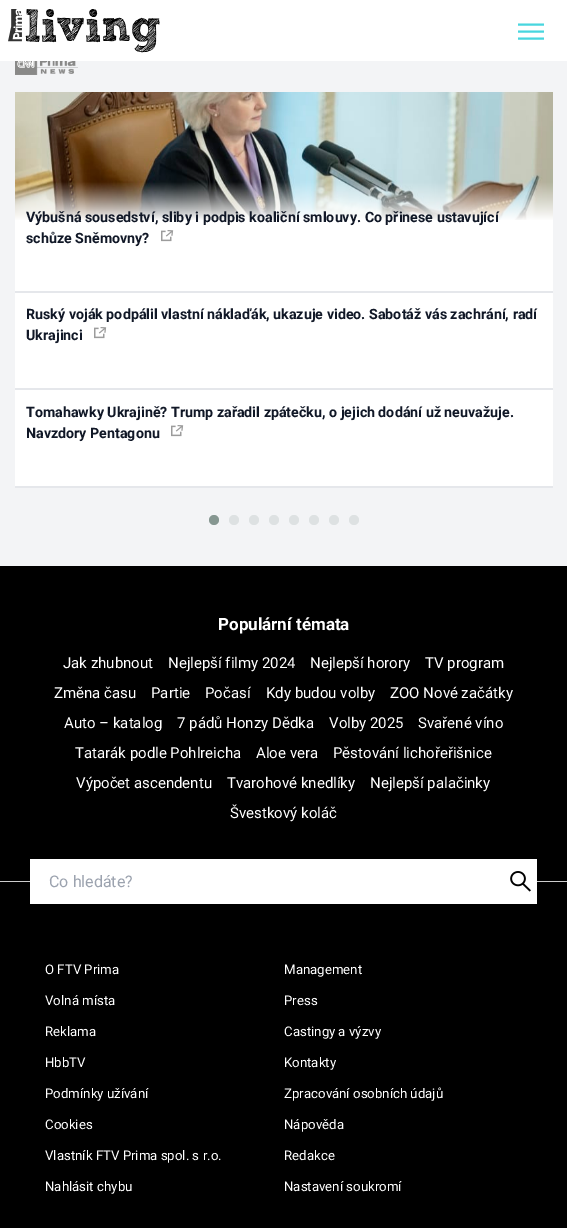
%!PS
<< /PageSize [567 1228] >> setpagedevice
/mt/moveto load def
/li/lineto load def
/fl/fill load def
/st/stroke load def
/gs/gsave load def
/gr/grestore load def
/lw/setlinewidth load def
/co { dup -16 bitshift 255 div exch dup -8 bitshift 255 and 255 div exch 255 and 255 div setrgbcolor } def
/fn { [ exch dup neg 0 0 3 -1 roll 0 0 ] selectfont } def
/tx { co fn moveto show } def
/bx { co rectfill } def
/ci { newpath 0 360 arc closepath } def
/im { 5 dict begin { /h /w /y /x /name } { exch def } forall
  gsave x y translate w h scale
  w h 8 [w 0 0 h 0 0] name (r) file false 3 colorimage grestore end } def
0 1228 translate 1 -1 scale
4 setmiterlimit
0 0 567 1228 16#F3F4F6 bx
0 0 567 61 16#FFFFFF bx
(media/1.raw) 8 9 152 44 im
gs
518 23 26 17 rectclip
16#48D6DF co
2 lw
518 24.5 mt 544.5 24.5 li 518 31.5 mt 544.5 31.5 li 518 38.5 mt 544.5 38.5 li st
gr
(media/2.raw) 15 61 63 14 im
15 220 538 266 16#FFFFFF bx
(media/3.raw) 15 92 538 128 im
15 291 538 2 16#E5E7EB bx
(media/4.raw) 161 230 13 12 im
15 388 538 2 16#E5E7EB bx
(media/4.raw) 94 327 13 12 im
15 486 538 2 16#E5E7EB bx
(media/4.raw) 171 425 13 12 im
16#869791 co
214 520 5 ci fl
16#DDE1E2 co
234 520 5 ci fl
254 520 5 ci fl
274 520 5 ci fl
294 520 5 ci fl
314 520 5 ci fl
334 520 5 ci fl
354 520 5 ci fl
0 566 567 662 16#000000 bx
0 881 567 1 16#CCCCCC bx
30 859 507 45 16#FFFFFF bx
(media/5.raw) 510 871 21 21 im
(Výbušná sousedství, sliby i podpis koaliční smlouvy. Co přinese ustavující) 26 222 /Roboto-Bold 14.25 16#111827 tx
(schůze Sněmovny?) 26 243 /Roboto-Bold 14.25 16#111827 tx
(Ruský voják podpálil vlastní náklaďák, ukazuje video. Sabotáž vás zachrání, radí) 26 319 /Roboto-Bold 14.25 16#111827 tx
(Ukrajinci) 26 340 /Roboto-Bold 14.25 16#111827 tx
(Tomahawky Ukrajině? Trump zařadil zpátečku, o jejich dodání už neuvažuje.) 26 417 /Roboto-Bold 14.25 16#111827 tx
(Navzdory Pentagonu) 26 438 /Roboto-Bold 14.25 16#111827 tx
(Populární témata) 218 630 /Roboto-Bold 17 16#FFFFFF tx
(Jak zhubnout) 63 668 /Roboto-Regular 15 16#FFFFFF tx
(Nejlepší filmy 2024) 168 668 /Roboto-Regular 15 16#FFFFFF tx
(Nejlepší horory) 310 668 /Roboto-Regular 15 16#FFFFFF tx
(TV program) 425 668 /Roboto-Regular 15 16#FFFFFF tx
(Změna času) 54 698 /Roboto-Regular 15 16#FFFFFF tx
(Partie) 151 698 /Roboto-Regular 15 16#FFFFFF tx
(Počasí) 205 698 /Roboto-Regular 15 16#FFFFFF tx
(Kdy budou volby) 266 698 /Roboto-Regular 15 16#FFFFFF tx
(ZOO Nové začátky) 390 698 /Roboto-Regular 15 16#FFFFFF tx
(Auto – katalog) 64 728 /Roboto-Regular 15 16#FFFFFF tx
(7 pádů Honzy Dědka) 177 728 /Roboto-Regular 15 16#FFFFFF tx
(Volby 2025) 329 728 /Roboto-Regular 15 16#FFFFFF tx
(Svařené víno) 418 728 /Roboto-Regular 15 16#FFFFFF tx
(Tatarák podle Pohlreicha) 75 758 /Roboto-Regular 15 16#FFFFFF tx
(Aloe vera) 256 758 /Roboto-Regular 15 16#FFFFFF tx
(Pěstování lichořeřišnice) 333 758 /Roboto-Regular 15 16#FFFFFF tx
(Výpočet ascendentu) 76 788 /Roboto-Regular 15 16#FFFFFF tx
(Tvarohové knedlíky) 227 788 /Roboto-Regular 15 16#FFFFFF tx
(Nejlepší palačinky) 370 788 /Roboto-Regular 15 16#FFFFFF tx
(Švestkový koláč) 230 818 /Roboto-Regular 15 16#FFFFFF tx
(Co hledáte?) 49 887 /Roboto-Regular 16 16#9CA3AF tx
(O FTV Prima) 45 974 /Roboto-Regular 13.25 16#FFFFFF tx
(Management) 284 974 /Roboto-Regular 13.25 16#FFFFFF tx
(Volná místa) 45 1005 /Roboto-Regular 13.25 16#FFFFFF tx
(Press) 284 1005 /Roboto-Regular 13.25 16#FFFFFF tx
(Reklama) 45 1036 /Roboto-Regular 13.25 16#FFFFFF tx
(Castingy a výzvy) 284 1036 /Roboto-Regular 13.25 16#FFFFFF tx
(HbbTV) 45 1067 /Roboto-Regular 13.25 16#FFFFFF tx
(Kontakty) 284 1067 /Roboto-Regular 13.25 16#FFFFFF tx
(Podmínky užívání) 45 1098 /Roboto-Regular 13.25 16#FFFFFF tx
(Zpracování osobních údajů) 284 1098 /Roboto-Regular 13.25 16#FFFFFF tx
(Cookies) 45 1129 /Roboto-Regular 13.25 16#FFFFFF tx
(Nápověda) 284 1129 /Roboto-Regular 13.25 16#FFFFFF tx
(Vlastník FTV Prima spol. s r.o.) 45 1160 /Roboto-Regular 13.25 16#FFFFFF tx
(Redakce) 284 1160 /Roboto-Regular 13.25 16#FFFFFF tx
(Nahlásit chybu) 45 1191 /Roboto-Regular 13.25 16#FFFFFF tx
(Nastavení soukromí) 284 1191 /Roboto-Regular 13.25 16#FFFFFF tx
showpage
